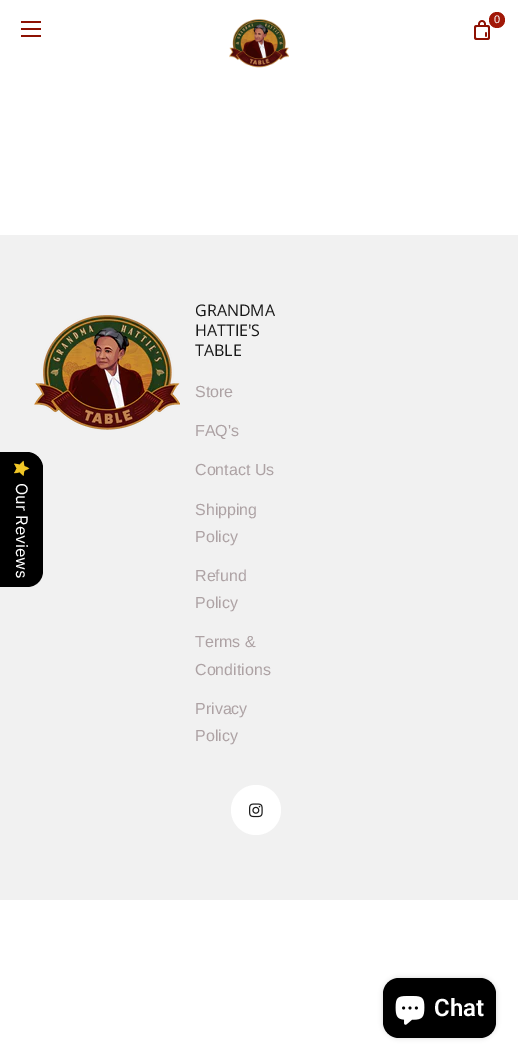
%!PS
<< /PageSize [518 1059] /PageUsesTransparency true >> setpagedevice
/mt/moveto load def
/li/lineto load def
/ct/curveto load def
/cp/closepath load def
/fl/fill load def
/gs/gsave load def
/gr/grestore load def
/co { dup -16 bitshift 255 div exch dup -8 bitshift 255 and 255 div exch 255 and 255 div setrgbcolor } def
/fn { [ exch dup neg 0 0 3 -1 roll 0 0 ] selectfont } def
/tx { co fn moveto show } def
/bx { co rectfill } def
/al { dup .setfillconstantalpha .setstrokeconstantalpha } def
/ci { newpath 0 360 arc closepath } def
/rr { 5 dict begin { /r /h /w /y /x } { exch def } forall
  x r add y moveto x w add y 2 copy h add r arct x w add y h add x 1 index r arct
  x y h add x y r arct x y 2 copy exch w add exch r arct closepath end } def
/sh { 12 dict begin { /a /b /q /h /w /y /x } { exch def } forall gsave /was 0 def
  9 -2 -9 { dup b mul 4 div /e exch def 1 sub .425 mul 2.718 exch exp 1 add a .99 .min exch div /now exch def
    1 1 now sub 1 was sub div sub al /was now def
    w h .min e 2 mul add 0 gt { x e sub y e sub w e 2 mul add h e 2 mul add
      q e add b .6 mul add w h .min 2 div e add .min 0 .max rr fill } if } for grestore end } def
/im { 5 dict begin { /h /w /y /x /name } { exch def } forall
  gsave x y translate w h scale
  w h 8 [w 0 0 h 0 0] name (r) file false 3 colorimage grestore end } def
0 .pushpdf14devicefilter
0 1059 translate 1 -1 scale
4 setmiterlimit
0 0 518 1059 16#FFFFFF bx
0 235 518 665 16#F1F1F1 bx
16#000000 co
43 468 mt 43 571 li 43 580 36 587 27 587 ct 0 587 li 0 452 li 27 452 li 36 452 43 460 43 468 ct cp fl
(media/1.raw) 14 460 16 16 im
21 21 20 2 16#8E1103 bx
21 28 20 2 16#8E1103 bx
21 35 20 2 16#8E1103 bx
(media/2.raw) 229 19 60 49 im
(media/3.raw) 474 20 16 20 im
16#A11808 co
497 20 8 ci fl
(media/4.raw) 34 315 146 115 im
16#FFFFFF co
256 810 25 ci fl
(media/5.raw) 249 803 14 15 im
16#000000 co
383 978 113 60 16 2.5 .15 sh
383 978 113 60 16 rr fl
(media/6.raw) 395 996 30 29 im
/Inter-Regular 16 fn
16#FFFFFF co
gs 16 483 translate 90 rotate 0 0 mt (Our Reviews) show gr
(0) 494 23 /LiberationSans-Regular 11 16#FFFFFF tx
(GRANDMA) 195 316 /OpenSans-Regular 16 16#191919 tx
(HATTIE'S) 195 336 /OpenSans-Regular 16 16#191919 tx
(TABLE) 195 356 /OpenSans-Regular 16 16#191919 tx
(Store) 195 397 /LiberationSans-Regular 16 16#ADA2A4 tx
(FAQ's) 195 436 /LiberationSans-Regular 16 16#ADA2A4 tx
(Contact Us) 195 475 /LiberationSans-Regular 16 16#ADA2A4 tx
(Shipping) 195 515 /LiberationSans-Regular 16 16#ADA2A4 tx
(Policy) 195 542 /LiberationSans-Regular 16 16#ADA2A4 tx
(Refund) 195 581 /LiberationSans-Regular 16 16#ADA2A4 tx
(Policy) 195 608 /LiberationSans-Regular 16 16#ADA2A4 tx
(Terms &) 195 647 /LiberationSans-Regular 16 16#ADA2A4 tx
(Conditions) 195 675 /LiberationSans-Regular 16 16#ADA2A4 tx
(Privacy) 195 714 /LiberationSans-Regular 16 16#ADA2A4 tx
(Policy) 195 741 /LiberationSans-Regular 16 16#ADA2A4 tx
(Chat) 434 1016 /Roboto-SemiBold 24 16#FFFFFF tx
.poppdf14devicefilter showpage
